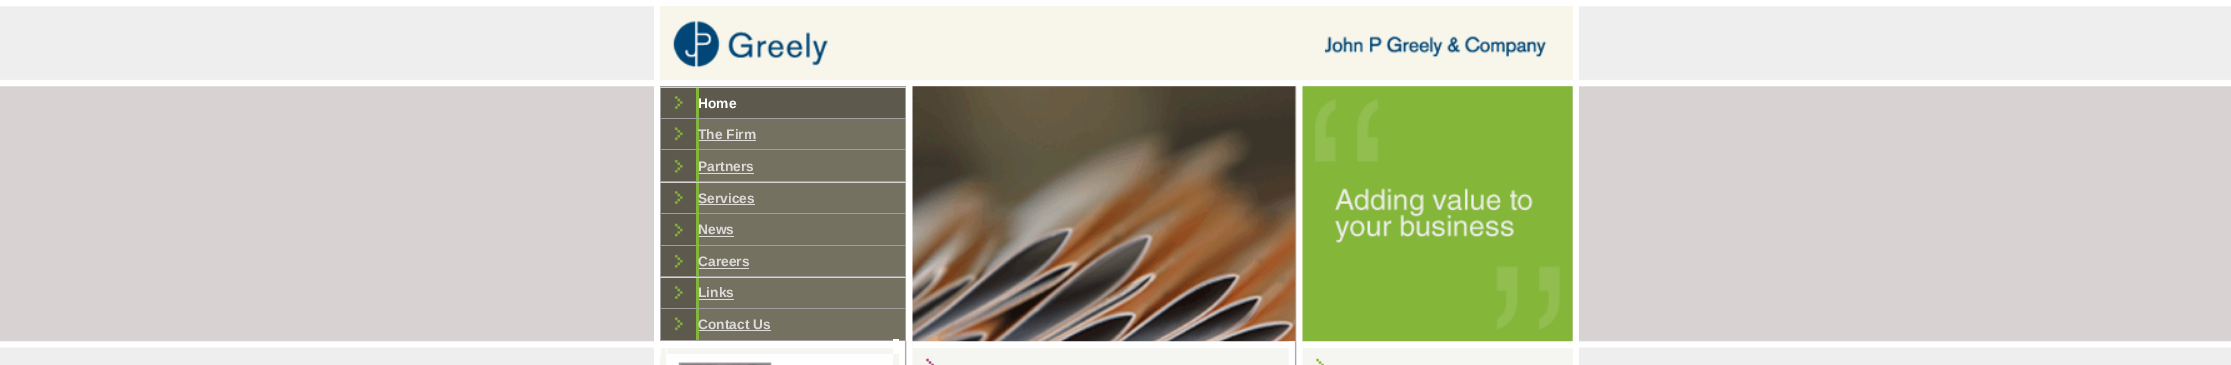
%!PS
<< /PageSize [2231 365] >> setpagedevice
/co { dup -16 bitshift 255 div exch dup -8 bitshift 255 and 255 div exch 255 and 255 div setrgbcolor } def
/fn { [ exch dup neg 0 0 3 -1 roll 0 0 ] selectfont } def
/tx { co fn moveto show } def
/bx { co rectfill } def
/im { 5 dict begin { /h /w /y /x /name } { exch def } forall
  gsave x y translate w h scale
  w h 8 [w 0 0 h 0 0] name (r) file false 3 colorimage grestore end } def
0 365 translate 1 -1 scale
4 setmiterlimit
0 0 2231 365 16#EEEEEE bx
(media/1.raw) 0 0 2231 348 im
654 6 6 74 16#FFFFFF bx
660 6 913 74 16#F8F6EA bx
(media/2.raw) 673 21 874 47 im
1573 6 6 74 16#FFFFFF bx
654 86 6 279 16#FFFFFF bx
660 86 246 1 16#A09F9F bx
660 88 1 30 16#A09F9F bx
661 88 35 30 16#5D5A4D bx
(media/3.raw) 674 96 9 13 im
696 88 3 30 16#84B63A bx
699 88 206 30 16#5D5A4D bx
905 88 1 30 16#A09F9F bx
660 118 246 1 16#A09F9F bx
660 119 1 30 16#A09F9F bx
661 119 35 30 16#5D5A4D bx
(media/4.raw) 674 127 9 14 im
696 119 3 30 16#84B63A bx
699 119 206 30 16#747161 bx
699 140 57 1 16#DCDBD9 bx
905 119 1 30 16#A09F9F bx
660 149 246 1 16#A09F9F bx
660 150 1 31 16#A09F9F bx
661 150 35 31 16#5D5A4D bx
(media/5.raw) 674 159 9 14 im
696 150 3 31 16#84B63A bx
699 150 206 31 16#747161 bx
699 173 55 1 16#DCDBD9 bx
905 150 1 31 16#A09F9F bx
660 181 246 1 16#A09F9F bx
660 183 1 30 16#A09F9F bx
661 183 35 30 16#5D5A4D bx
(media/3.raw) 674 191 9 13 im
696 183 3 30 16#84B63A bx
699 183 206 30 16#747161 bx
699 204 56 1 16#DCDBD9 bx
905 183 1 30 16#A09F9F bx
660 213 246 1 16#A09F9F bx
660 214 1 31 16#A09F9F bx
661 214 35 31 16#5D5A4D bx
(media/6.raw) 674 223 9 14 im
696 214 3 31 16#84B63A bx
699 214 206 31 16#747161 bx
699 236 35 1 16#DCDBD9 bx
905 214 1 31 16#A09F9F bx
660 245 246 1 16#A09F9F bx
660 246 1 30 16#A09F9F bx
661 246 35 30 16#5D5A4D bx
(media/5.raw) 674 254 9 14 im
696 246 3 30 16#84B63A bx
699 246 206 30 16#747161 bx
699 268 50 1 16#DCDBD9 bx
905 246 1 30 16#A09F9F bx
660 276 246 1 16#A09F9F bx
660 278 1 30 16#A09F9F bx
661 278 35 30 16#5D5A4D bx
(media/3.raw) 674 286 9 13 im
696 278 3 30 16#84B63A bx
699 278 206 30 16#747161 bx
699 299 35 1 16#DCDBD9 bx
905 278 1 30 16#A09F9F bx
660 308 246 1 16#A09F9F bx
660 309 1 31 16#A09F9F bx
661 309 35 31 16#5D5A4D bx
(media/4.raw) 674 317 9 14 im
696 309 3 31 16#84B63A bx
699 309 206 31 16#747161 bx
699 330 72 1 16#DCDBD9 bx
905 309 1 31 16#A09F9F bx
660 340 246 1 16#A09F9F bx
906 86 7 255 16#FFFFFF bx
1296 86 7 255 16#FFFFFF bx
660 341 913 24 16#F5F5F1 bx
913 341 376 7 16#FFFFFF bx
(media/7.raw) 912 86 385 256 im
1303 341 270 7 16#FFFFFF bx
(media/8.raw) 1302 86 271 256 im
1573 86 6 279 16#FFFFFF bx
660 341 239 7 16#FFFFFF bx
660 341 1 15 16#FFFFFF bx
666 354 227 11 16#FFFFFF bx
666 341 1 15 16#FFFFFF bx
893 339 6 15 16#FFFFFF bx
(media/9.raw) 678 362 94 3 im
(media/10.raw) 899 341 14 24 im
(media/11.raw) 926 358 8 7 im
(media/12.raw) 1288 341 15 24 im
(media/13.raw) 1316 358 8 7 im
(Home) 698 108 /LiberationSans-Bold 13.75 16#FFFFFF tx
(The Firm) 698 139 /LiberationSans-Bold 13.75 16#DCDBD9 tx
(Partners) 698 171 /LiberationSans-Bold 13.75 16#DCDBD9 tx
(Services) 698 203 /LiberationSans-Bold 13.75 16#DCDBD9 tx
(News) 698 234 /LiberationSans-Bold 13.75 16#DCDBD9 tx
(Careers) 698 266 /LiberationSans-Bold 13.75 16#DCDBD9 tx
(Links) 698 297 /LiberationSans-Bold 13.75 16#DCDBD9 tx
(Contact Us) 698 329 /LiberationSans-Bold 13.75 16#DCDBD9 tx
showpage
